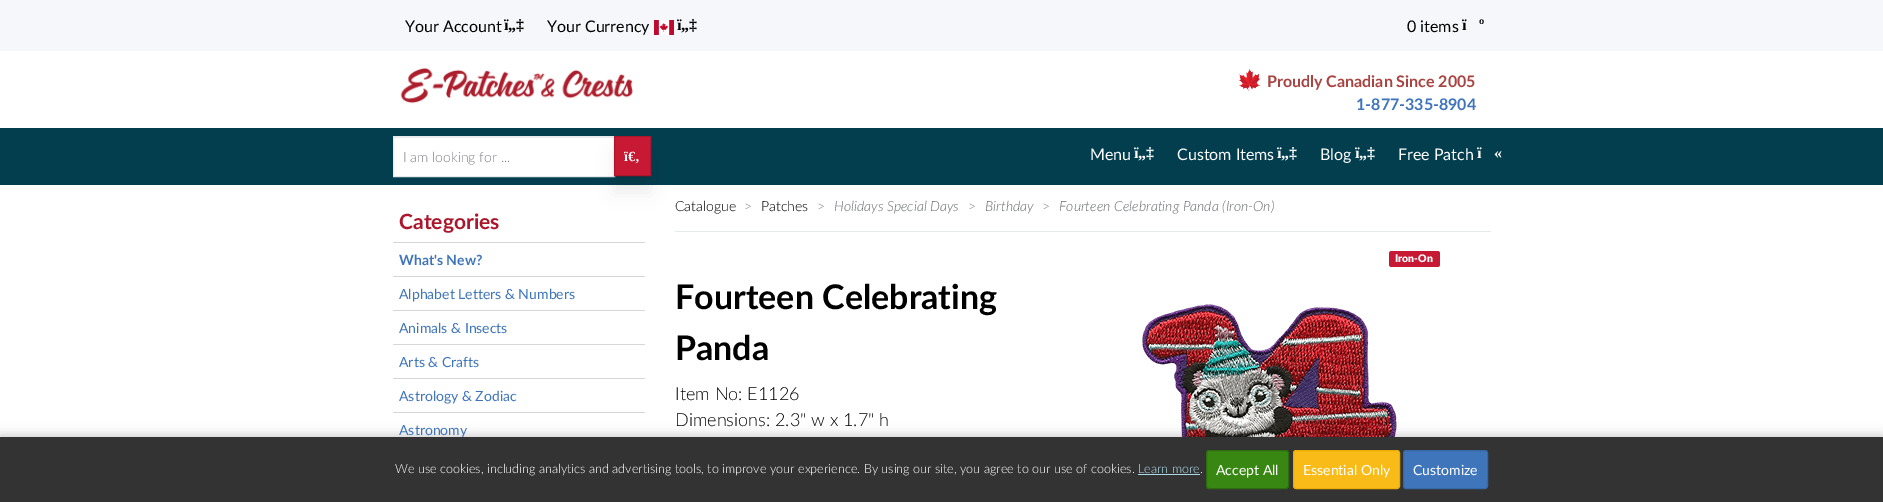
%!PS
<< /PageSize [1883 502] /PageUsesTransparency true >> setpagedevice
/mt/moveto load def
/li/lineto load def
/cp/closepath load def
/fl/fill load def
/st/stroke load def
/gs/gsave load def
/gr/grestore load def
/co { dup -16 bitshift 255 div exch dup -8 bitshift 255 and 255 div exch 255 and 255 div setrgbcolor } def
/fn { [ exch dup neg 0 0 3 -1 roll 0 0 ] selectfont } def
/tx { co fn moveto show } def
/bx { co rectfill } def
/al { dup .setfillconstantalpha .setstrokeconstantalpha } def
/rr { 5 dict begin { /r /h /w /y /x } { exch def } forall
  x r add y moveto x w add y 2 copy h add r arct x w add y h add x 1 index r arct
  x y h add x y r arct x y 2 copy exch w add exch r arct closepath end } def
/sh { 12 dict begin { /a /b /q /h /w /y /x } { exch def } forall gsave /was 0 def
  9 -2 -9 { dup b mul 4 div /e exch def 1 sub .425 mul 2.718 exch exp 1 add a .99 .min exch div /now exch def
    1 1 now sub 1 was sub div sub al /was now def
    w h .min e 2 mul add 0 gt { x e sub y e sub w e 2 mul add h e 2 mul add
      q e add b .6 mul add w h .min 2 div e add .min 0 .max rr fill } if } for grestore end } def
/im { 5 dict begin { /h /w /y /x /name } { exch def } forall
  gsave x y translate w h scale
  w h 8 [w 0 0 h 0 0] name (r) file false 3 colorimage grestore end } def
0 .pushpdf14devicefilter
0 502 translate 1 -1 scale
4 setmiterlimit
0 0 1883 502 16#FFFFFF bx
0 0 1883 51 16#F5F7FA bx
(media/1.raw) 654 20 20 15 im
(media/2.raw) 400 68 233 36 im
(media/3.raw) 1239 68 22 23 im
0 128 1883 57 16#033E4E bx
394 138 220 38 16#FFFFFF bx
394 137 220 1 16#ECECEC bx
16#E6E9ED co
393.5 136.5 221 40 rectstroke
16#000000 co
614 152 37 40 0 8 .07 sh
614 138 37 40 0 1 .07 sh
614 137 37 40 0 .5 .07 sh
16#C71933 co
614.5 136.5 mt 650.5 136.5 li 650.5 175.5 li 614.5 175.5 li cp gs fl gr
16#AC162C co
st
393 242 252 1 16#D7D7D7 bx
393 276 252 1 16#D7D7D7 bx
393 310 252 1 16#D7D7D7 bx
393 344 252 1 16#D7D7D7 bx
393 378 252 1 16#D7D7D7 bx
393 412 252 1 16#D7D7D7 bx
675 231 816 1 16#E6E9ED bx
16#C71933 co
1389 251 51 16 2.5 rr fl
(media/4.raw) 1142 304 255 133 im
16#000000 co
0 435 1883 65 0 5 .2 sh
(Your Account) 405 32 /Lato-Regular 16 16#000000 tx
(ï„‡) 504 30 /LiberationSerif-Bold 16 16#000000 tx
(Your Currency) 547 32 /Lato-Regular 16 16#000000 tx
(ï„‡) 677 30 /LiberationSerif-Bold 16 16#000000 tx
(0 items) 1407 32 /Lato-Regular 16 16#000000 tx
(ï) 1462 30 /LiberationSerif-Bold 16 16#000000 tx
(º) 1479 30 /LiberationSerif-Bold 16 16#000000 tx
(Proudly Canadian Since 2005) 1267 87 /Lato-Bold 16 16#A94442 tx
(1-877-335-8904) 1356 110 /Lato-Bold 16 16#3F75BB tx
(I am looking for ...) 403 162 /Lato-Light 14 16#7F828A tx
(ï€‚) 624 161 /LiberationSerif-Bold 14 16#FFFFFF tx
(Menu) 1090 160 /Lato-Regular 16 16#FFFFFF tx
(ï„‡) 1134 158 /LiberationSerif-Bold 16 16#FFFFFF tx
(Custom Items) 1177 160 /Lato-Regular 16 16#FFFFFF tx
(ï„‡) 1277 158 /LiberationSerif-Bold 16 16#FFFFFF tx
(Blog) 1320 160 /Lato-Regular 16 16#FFFFFF tx
(ï„‡) 1355 158 /LiberationSerif-Bold 16 16#FFFFFF tx
(Free Patch) 1398 160 /Lato-Regular 16 16#FFFFFF tx
(ï) 1477 158 /LiberationSerif-Bold 16 16#FFFFFF tx
(«) 1494 158 /LiberationSerif-Bold 16 16#FFFFFF tx
(Categories) 399 229 /Lato-Bold 21 16#AC162C tx
(What's New?) 399 265 /Lato-Bold 14 16#3F75BB tx
(Alphabet Letters & Numbers) 399 299 /Lato-Regular 14 16#3F75BB tx
(Animals & Insects) 399 333 /Lato-Regular 14 16#3F75BB tx
(Arts & Crafts) 399 367 /Lato-Regular 14 16#3F75BB tx
(Astrology & Zodiac) 399 401 /Lato-Regular 14 16#3F75BB tx
(Astronomy) 399 435 /Lato-Regular 14 16#3F75BB tx
(Catalogue) 675 211 /Lato-Light 14 16#000000 tx
(>) 744 211 /Lato-Light 14 16#7F828A tx
(Patches) 761 211 /Lato-Light 14 16#000000 tx
(>) 817 211 /Lato-Light 14 16#7F828A tx
(Holidays Special Days) 834 211 /Lato-LightItalic 14 16#666970 tx
(>) 968 211 /Lato-Light 14 16#7F828A tx
(Birthday) 985 211 /Lato-LightItalic 14 16#666970 tx
(>) 1042 211 /Lato-Light 14 16#7F828A tx
(Fourteen Celebrating Panda \(Iron-On\)) 1059 211 /Lato-LightItalic 14 16#666970 tx
(Iron-On) 1395 262 /Lato-Black 10.5 16#FFFFFF tx
(Fourteen Celebrating) 675 309 /Lato-Bold 34 16#000000 tx
(Panda) 675 360 /Lato-Bold 34 16#000000 tx
(Item No: E1126) 675 400 /Lato-Light 18 16#000000 tx
(Dimensions: 2.3" w x 1.7" h) 675 426 /Lato-Light 18 16#000000 tx
0 437 1883 65 16#333333 bx
(We use cookies, including analytics and advertising tools, to improve your experience. By using our site, you agree to our use of cookies.) 395 473 /Lato-Light 12.6 16#FFFFFF tx
(Learn more) 1138 473 /Lato-Light 12.6 16#ADD8E6 tx
1138 474 62 1 16#ADD8E6 bx
(.) 1200 473 /Lato-Light 12.6 16#FFFFFF tx
16#388712 co
1206.5 450.5 82 38 2.5 rr gs fl gr
16#2D6C0E co
st
(Accept All) 1216 475 /Lato-Regular 14 16#FFFFFF tx
16#F9BB17 co
1293.5 450.5 106 38 2.5 rr gs fl gr
16#EBAC06 co
st
(Essential Only) 1303 475 /Lato-Regular 14 16#FFFFFF tx
16#3F75BB co
1403.5 450.5 84 38 2.5 rr gs fl gr
16#3767A4 co
st
(Customize) 1413 475 /Lato-Regular 14 16#FFFFFF tx
.poppdf14devicefilter showpage
